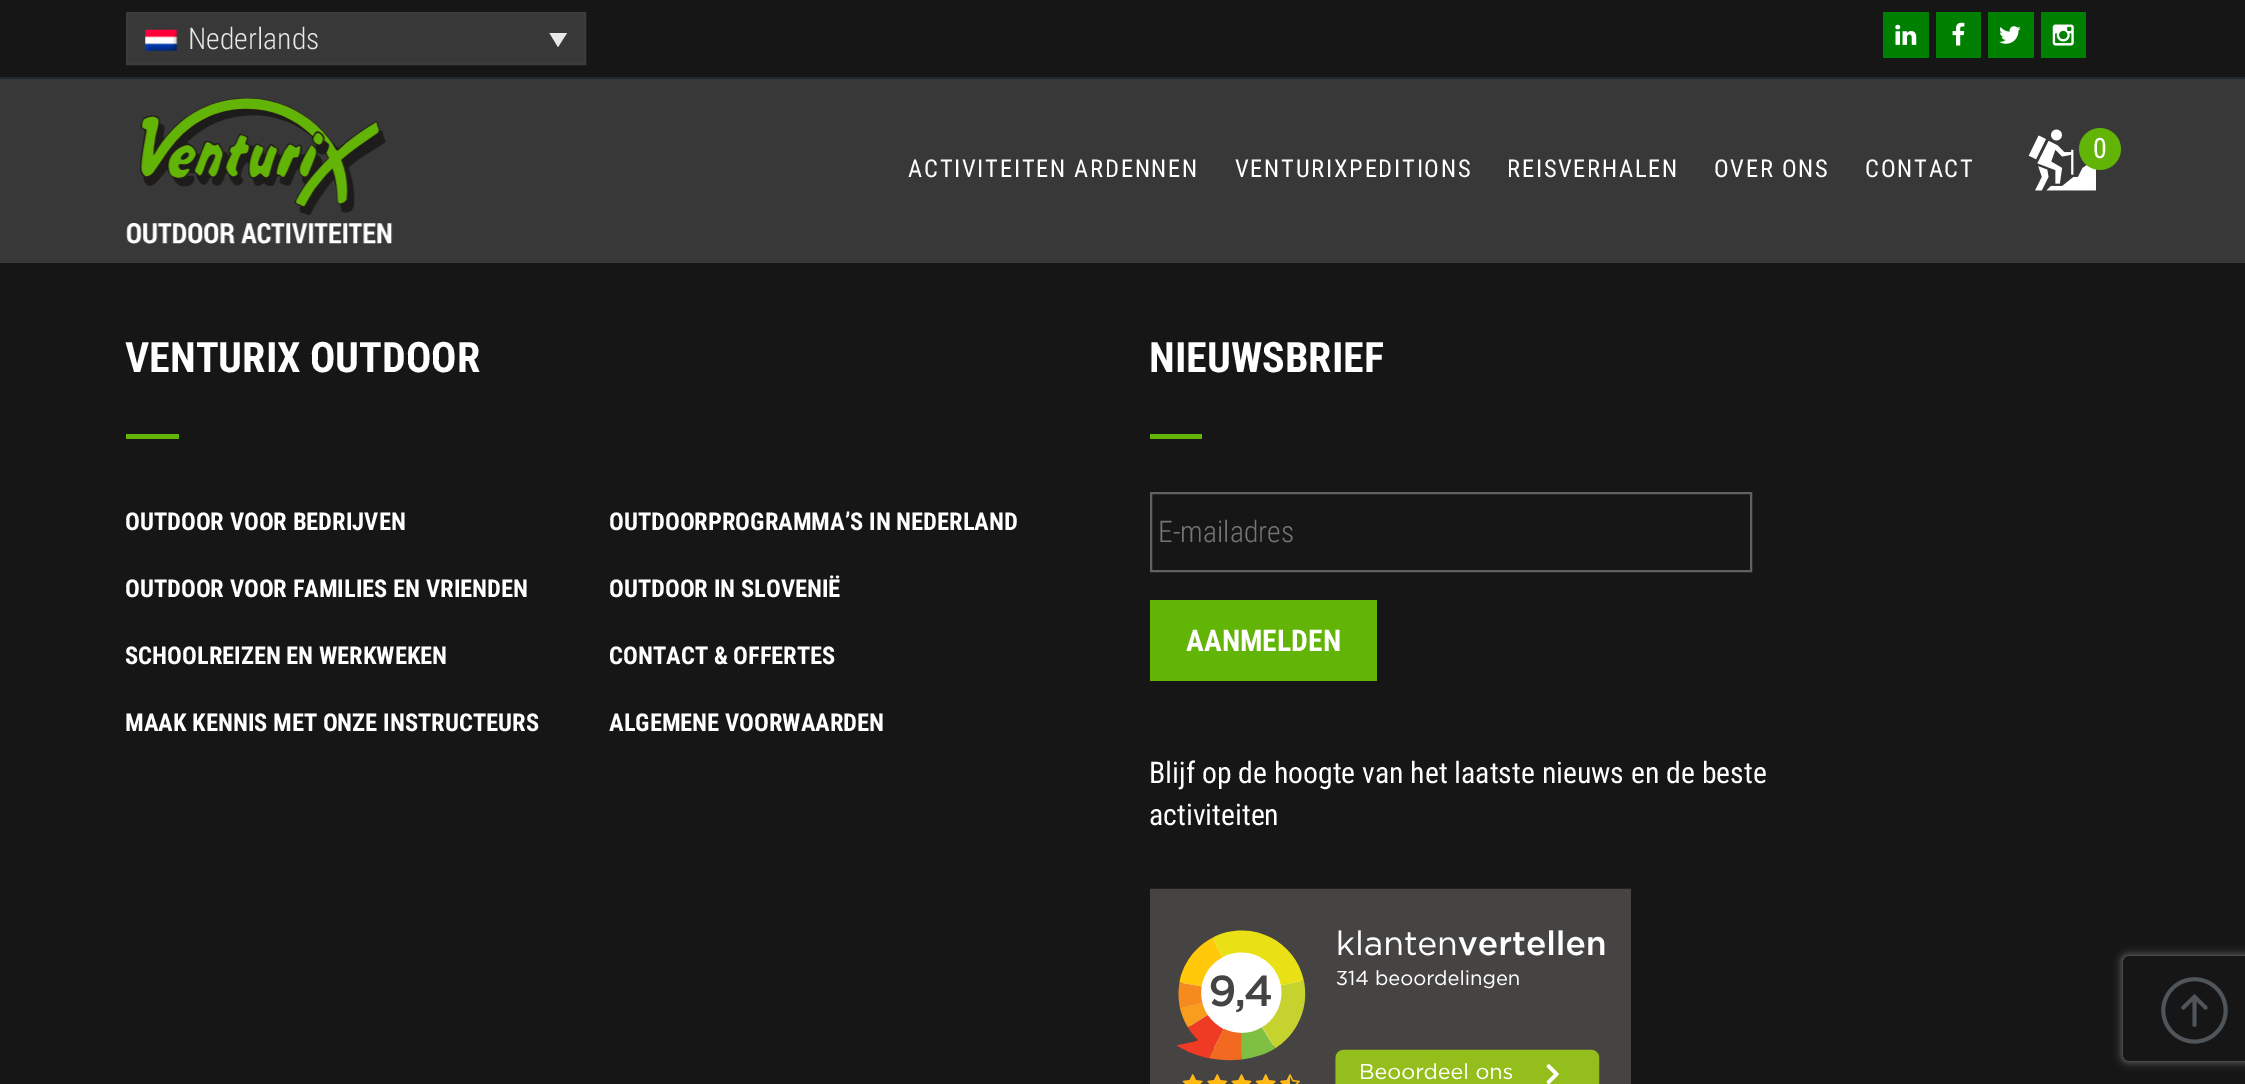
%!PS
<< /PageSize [2245 1084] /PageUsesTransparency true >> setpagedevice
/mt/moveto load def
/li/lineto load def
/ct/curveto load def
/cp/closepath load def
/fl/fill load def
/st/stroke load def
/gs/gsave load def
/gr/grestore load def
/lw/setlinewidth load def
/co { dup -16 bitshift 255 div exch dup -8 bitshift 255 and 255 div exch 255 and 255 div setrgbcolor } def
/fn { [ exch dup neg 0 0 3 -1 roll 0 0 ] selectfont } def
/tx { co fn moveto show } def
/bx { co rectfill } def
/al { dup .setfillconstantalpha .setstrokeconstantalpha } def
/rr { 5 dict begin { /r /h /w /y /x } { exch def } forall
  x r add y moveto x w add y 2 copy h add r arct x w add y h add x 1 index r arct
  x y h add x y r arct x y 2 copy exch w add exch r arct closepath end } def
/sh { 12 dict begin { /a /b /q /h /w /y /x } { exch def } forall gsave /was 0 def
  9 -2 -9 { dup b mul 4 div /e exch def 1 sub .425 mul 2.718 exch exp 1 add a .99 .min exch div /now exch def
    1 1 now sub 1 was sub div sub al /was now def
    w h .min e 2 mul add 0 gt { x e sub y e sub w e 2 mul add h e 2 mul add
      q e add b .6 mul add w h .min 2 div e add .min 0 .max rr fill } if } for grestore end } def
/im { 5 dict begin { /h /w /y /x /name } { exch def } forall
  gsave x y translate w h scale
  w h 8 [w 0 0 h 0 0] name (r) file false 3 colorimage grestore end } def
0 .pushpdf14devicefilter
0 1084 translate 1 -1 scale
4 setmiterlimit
0 0 2245 1084 16#161616 bx
0 77 2245 2 16#212A32 bx
16#383838 co
127 13 mt 585 13 li 585 64 li 127 64 li cp gs fl gr
16#3C3C3C co
2 lw
st
(media/1.raw) 145 29 33 22 im
16#E8E8E8 co
549.5 33 mt 567 33 li 558 47 li cp fl
1883 12 46 46 16#008000 bx
(media/2.raw) 1895 24 22 21 im
1936 12 45 46 16#008000 bx
(media/3.raw) 1952 22 13 24 im
1988 12 46 46 16#008000 bx
(media/4.raw) 1999 26 22 18 im
2041 12 45 46 16#008000 bx
(media/5.raw) 2052 24 22 22 im
0 79 2245 184 16#383838 bx
(media/6.raw) 126 98 267 146 im
(media/7.raw) 2028 128 93 63 im
126 434 53 5 16#62B507 bx
1150 434 52 5 16#62B507 bx
16#616161 co
1151 493 600 78 rectstroke
1150 600 227 81 16#62B507 bx
(media/8.raw) 1150 888 481 196 im
(media/9.raw) 2161 977 67 67 im
gs
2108 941 mt 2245 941 li 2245 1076 li 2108 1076 li cp 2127 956 mt 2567 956 li 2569 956 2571 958 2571 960 ct 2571 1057 li 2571 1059 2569 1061 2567 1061 ct 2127 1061 li 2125 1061 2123 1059 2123 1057 ct 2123 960 li 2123 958 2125 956 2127 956 ct cp eoclip newpath
16#808080 co
2123 956 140 105 4 4.5 1 sh
gr
(Nederlands) 188 49 /RobotoCondensed-Light 29.75 16#E8E8E8 tx
(0) 2093 158 /RobotoCondensed-Regular 28 16#FFFFFF tx
/RobotoCondensed-Regular 24.5 fn
908 177 mt 1.75 0 (ACTIVITEITEN ARDENNEN) ashow
1235 177 mt 1.75 0 (VENTURIXPEDITIONS) ashow
1507 177 mt 1.75 0 (REISVERHALEN) ashow
1714 177 mt 1.75 0 (OVER ONS) ashow
1865 177 mt 1.75 0 (CONTACT) ashow
(VENTURIX OUTDOOR) 125 372 /RobotoCondensed-Bold 42 16#FFFFFF tx
(OUTDOOR VOOR BEDRIJVEN) 125 530 /RobotoCondensed-Bold 24.5 16#FFFFFF tx
(OUTDOOR VOOR FAMILIES EN VRIENDEN) 125 597 /RobotoCondensed-Bold 24.5 16#FFFFFF tx
(SCHOOLREIZEN EN WERKWEKEN) 125 664 /RobotoCondensed-Bold 24.5 16#FFFFFF tx
(MAAK KENNIS MET ONZE INSTRUCTEURS) 125 731 /RobotoCondensed-Bold 24.5 16#FFFFFF tx
(OUTDOORPROGRAMMA’S IN NEDERLAND) 609 530 /RobotoCondensed-Bold 24.5 16#FFFFFF tx
(OUTDOOR IN SLOVENIË) 609 597 /RobotoCondensed-Bold 24.5 16#FFFFFF tx
(CONTACT & OFFERTES) 609 664 /RobotoCondensed-Bold 24.5 16#FFFFFF tx
(ALGEMENE VOORWAARDEN) 609 731 /RobotoCondensed-Bold 24.5 16#FFFFFF tx
(NIEUWSBRIEF) 1149 372 /RobotoCondensed-Bold 42 16#FFFFFF tx
(E-mailadres) 1158 542 /RobotoCondensed-Light 29.75 16#757575 tx
(AANMELDEN) 1186 651 /RobotoCondensed-Bold 29.75 16#FFFFFF tx
(Blijf op de hoogte van het laatste nieuws en de beste) 1149 783 /RobotoCondensed-Regular 29.75 16#FFFFFF tx
(activiteiten) 1149 825 /RobotoCondensed-Regular 29.75 16#FFFFFF tx
.poppdf14devicefilter showpage
